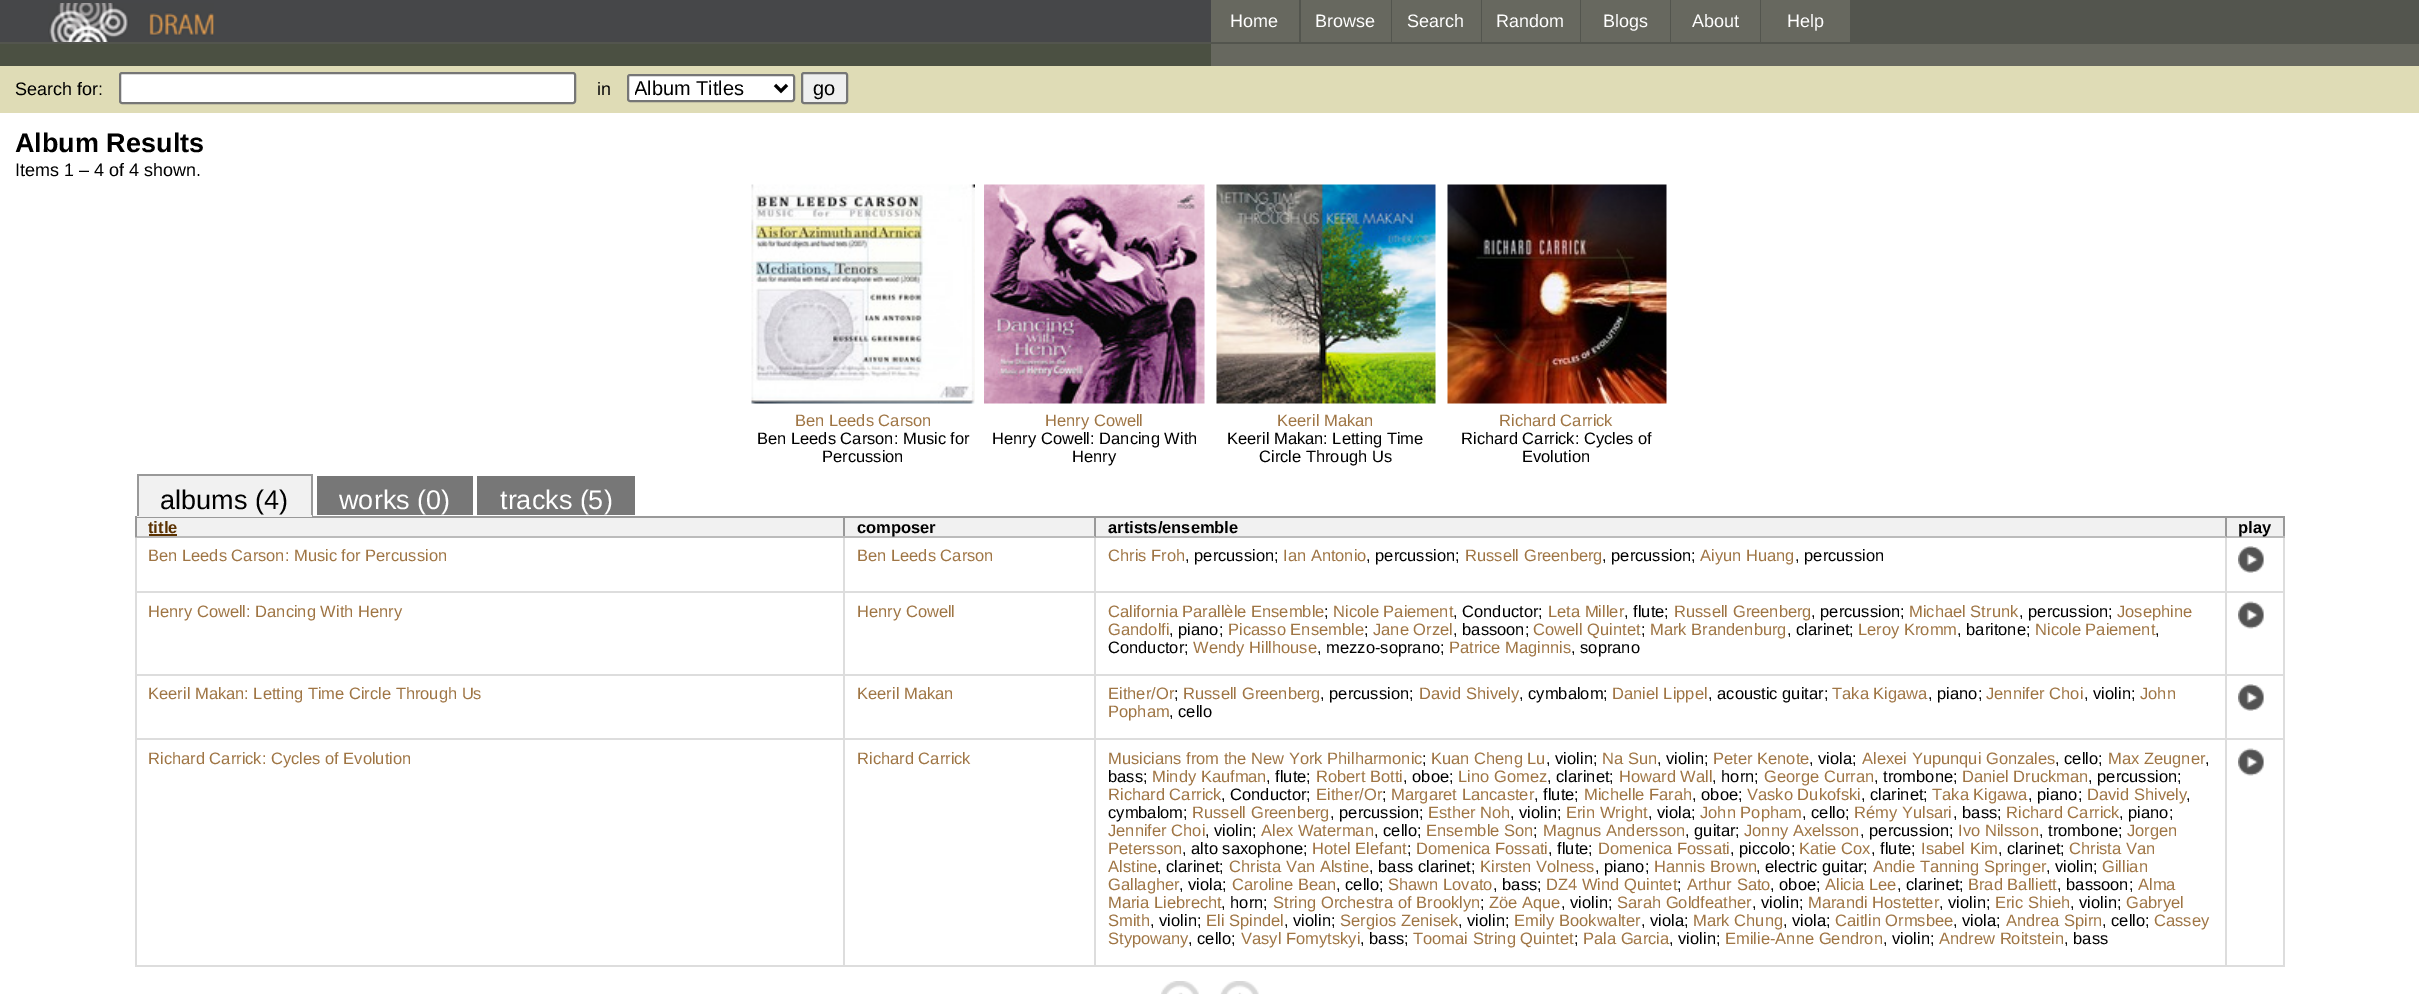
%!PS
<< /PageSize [2419 994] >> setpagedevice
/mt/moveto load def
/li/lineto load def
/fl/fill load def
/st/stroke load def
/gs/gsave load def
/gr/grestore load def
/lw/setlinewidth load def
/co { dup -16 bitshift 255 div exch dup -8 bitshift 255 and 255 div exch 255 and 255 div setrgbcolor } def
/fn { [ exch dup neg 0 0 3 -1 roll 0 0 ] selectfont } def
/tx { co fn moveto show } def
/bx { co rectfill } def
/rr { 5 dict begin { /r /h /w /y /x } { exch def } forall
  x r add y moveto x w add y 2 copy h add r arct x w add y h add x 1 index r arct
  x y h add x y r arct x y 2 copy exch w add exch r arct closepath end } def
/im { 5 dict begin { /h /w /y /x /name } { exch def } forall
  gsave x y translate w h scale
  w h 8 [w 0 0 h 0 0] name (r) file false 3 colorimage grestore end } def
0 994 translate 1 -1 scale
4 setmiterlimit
0 0 2419 994 16#464749 bx
(media/1.raw) 48 3 166 39 im
1299 0 1120 42 16#53554E bx
1211 0 88 42 16#67685F bx
1301 0 90 42 16#67685F bx
1392 0 89 42 16#67685F bx
1482 0 98 42 16#67685F bx
1581 0 89 42 16#67685F bx
1671 0 89 42 16#67685F bx
1761 0 89 42 16#67685F bx
1211 44 1208 22 16#67685F bx
0 42 2419 2 16#53554E bx
0 44 1211 22 16#4B5042 bx
0 66 2419 47 16#DFDCB6 bx
16#FFFFFF co
120 73 455 30 2 rr gs fl gr
16#767676 co
2 lw
st
16#FFFFFF co
628 75 166 26 2 rr gs fl gr
16#767676 co
st
16#000000 co
3 lw
775 85 mt 781 91 li 787 85 li st
16#EFEFEF co
802 73 45 30 2 rr gs fl gr
16#767676 co
2 lw
st
0 113 2419 881 16#FFFFFF bx
(media/2.raw) 751 184 224 220 im
(media/3.raw) 984 184 221 220 im
(media/4.raw) 1216 184 220 220 im
(media/5.raw) 1447 184 220 220 im
139 476 172 39 16#F1F1F1 bx
137 474 175 2 16#999999 bx
311 474 2 42 16#999999 bx
2225 516 60 2 16#999999 bx
2283 536 2 430 16#DDDDDD bx
2283 516 2 21 16#999999 bx
2225 965 60 2 16#DDDDDD bx
2225 738 2 228 16#DDDDDD bx
2225 738 60 2 16#DDDDDD bx
2225 674 2 66 16#DDDDDD bx
2225 674 60 2 16#DDDDDD bx
2225 591 2 84 16#DDDDDD bx
2225 591 60 2 16#DDDDDD bx
2225 536 2 57 16#DDDDDD bx
2225 536 60 2 16#BBBBBB bx
2225 516 2 21 16#999999 bx
1094 516 1132 2 16#999999 bx
1094 965 1132 2 16#DDDDDD bx
1094 738 2 228 16#DDDDDD bx
1094 738 1132 2 16#DDDDDD bx
1094 674 2 66 16#DDDDDD bx
1094 674 1132 2 16#DDDDDD bx
1094 591 2 84 16#DDDDDD bx
1094 591 1132 2 16#DDDDDD bx
1094 536 2 57 16#DDDDDD bx
1094 536 1132 2 16#BBBBBB bx
1094 516 2 21 16#999999 bx
843 516 252 2 16#999999 bx
843 965 252 2 16#DDDDDD bx
843 738 2 228 16#DDDDDD bx
843 738 252 2 16#DDDDDD bx
843 674 2 66 16#DDDDDD bx
843 674 252 2 16#DDDDDD bx
843 591 2 84 16#DDDDDD bx
843 591 252 2 16#DDDDDD bx
843 536 2 57 16#DDDDDD bx
843 536 252 2 16#BBBBBB bx
843 516 2 21 16#999999 bx
135 516 710 2 16#999999 bx
137 515 175 2 16#F1F1F1 bx
137 474 2 42 16#999999 bx
317 476 156 39 16#777777 bx
477 476 158 39 16#777777 bx
137 518 706 18 16#F1F1F1 bx
135 965 710 2 16#DDDDDD bx
135 738 2 228 16#DDDDDD bx
135 738 710 2 16#DDDDDD bx
135 674 2 66 16#DDDDDD bx
135 674 710 2 16#DDDDDD bx
135 591 2 84 16#DDDDDD bx
135 591 710 2 16#DDDDDD bx
135 536 2 57 16#DDDDDD bx
135 536 710 2 16#BBBBBB bx
135 516 2 21 16#999999 bx
149 534 28 2 16#5B3100 bx
845 518 249 18 16#F1F1F1 bx
1096 518 1129 18 16#F1F1F1 bx
2227 518 56 18 16#F1F1F1 bx
(media/6.raw) 2238 546 26 27 im
(media/7.raw) 2238 601 26 28 im
(media/6.raw) 2238 684 26 27 im
(media/7.raw) 2238 748 26 28 im
(media/8.raw) 1161 981 38 13 im
(media/9.raw) 1220 981 39 13 im
(Home) 1230 27 /LiberationSans-Regular 18 16#FFFFFF tx
(Browse) 1315 27 /LiberationSans-Regular 18 16#FFFFFF tx
(Search) 1407 27 /LiberationSans-Regular 18 16#FFFFFF tx
(Random) 1496 27 /LiberationSans-Regular 18 16#FFFFFF tx
(Blogs) 1603 27 /LiberationSans-Regular 18 16#FFFFFF tx
(About) 1692 27 /LiberationSans-Regular 18 16#FFFFFF tx
(Help) 1787 27 /LiberationSans-Regular 18 16#FFFFFF tx
(Search for:) 15 95 /LiberationSans-Regular 18 16#000000 tx
(in) 597 95 /LiberationSans-Regular 18 16#000000 tx
gs
635 75 135 26 rectclip
(Album Titles) 634 95 /LiberationSans-Regular 20 16#000000 tx
gr
(go) 813 95 /LiberationSans-Regular 20 16#000000 tx
(Album Results) 15 152 /LiberationSans-Bold 27 16#000000 tx
(Items 1 – 4 of 4 shown.) 15 176 /LiberationSans-Regular 18 16#000000 tx
(Ben Leeds Carson) 795 426 /LiberationSans-Regular 16.5 16#9F7544 tx
(Ben Leeds Carson: Music for) 757 444 /LiberationSans-Regular 16.5 16#000000 tx
(Percussion) 822 462 /LiberationSans-Regular 16.5 16#000000 tx
(Henry Cowell) 1045 426 /LiberationSans-Regular 16.5 16#9F7544 tx
(Henry Cowell: Dancing With) 992 444 /LiberationSans-Regular 16.5 16#000000 tx
(Henry) 1072 462 /LiberationSans-Regular 16.5 16#000000 tx
(Keeril Makan) 1277 426 /LiberationSans-Regular 16.5 16#9F7544 tx
(Keeril Makan: Letting Time) 1227 444 /LiberationSans-Regular 16.5 16#000000 tx
(Circle Through Us) 1259 462 /LiberationSans-Regular 16.5 16#000000 tx
(Richard Carrick) 1499 426 /LiberationSans-Regular 16.5 16#9F7544 tx
(Richard Carrick: Cycles of) 1461 444 /LiberationSans-Regular 16.5 16#000000 tx
(Evolution) 1522 462 /LiberationSans-Regular 16.5 16#000000 tx
(albums \(4\)) 160 509 /LiberationSans-Regular 27 16#000000 tx
(works \(0\)) 339 509 /LiberationSans-Regular 27 16#FFFFFF tx
(tracks \(5\)) 500 509 /LiberationSans-Regular 27 16#FFFFFF tx
(title) 148 533 /LiberationSans-Bold 16.5 16#5B3100 tx
(composer) 857 533 /LiberationSans-Bold 16.5 16#000000 tx
(artists/ensemble) 1108 533 /LiberationSans-Bold 16.5 16#000000 tx
(play) 2238 533 /LiberationSans-Bold 16.5 16#000000 tx
(Ben Leeds Carson: Music for Percussion) 148 561 /LiberationSans-Regular 16.5 16#9F7544 tx
(Ben Leeds Carson) 857 561 /LiberationSans-Regular 16.5 16#9F7544 tx
(Chris Froh) 1108 561 /LiberationSans-Regular 16.5 16#9F7544 tx
(, percussion;) 1185 561 /LiberationSans-Regular 16.5 16#000000 tx
(Ian Antonio) 1283 561 /LiberationSans-Regular 16.5 16#9F7544 tx
(, percussion;) 1366 561 /LiberationSans-Regular 16.5 16#000000 tx
(Russell Greenberg) 1465 561 /LiberationSans-Regular 16.5 16#9F7544 tx
(, percussion;) 1602 561 /LiberationSans-Regular 16.5 16#000000 tx
(Aiyun Huang) 1700 561 /LiberationSans-Regular 16.5 16#9F7544 tx
(, percussion) 1795 561 /LiberationSans-Regular 16.5 16#000000 tx
(Henry Cowell: Dancing With Henry) 148 617 /LiberationSans-Regular 16.5 16#9F7544 tx
(Henry Cowell) 857 617 /LiberationSans-Regular 16.5 16#9F7544 tx
(California Parallèle Ensemble) 1108 617 /LiberationSans-Regular 16.5 16#9F7544 tx
(;) 1324 617 /LiberationSans-Regular 16.5 16#000000 tx
(Nicole Paiement) 1333 617 /LiberationSans-Regular 16.5 16#9F7544 tx
(, Conductor;) 1453 617 /LiberationSans-Regular 16.5 16#000000 tx
(Leta Miller) 1548 617 /LiberationSans-Regular 16.5 16#9F7544 tx
(, flute;) 1624 617 /LiberationSans-Regular 16.5 16#000000 tx
(Russell Greenberg) 1674 617 /LiberationSans-Regular 16.5 16#9F7544 tx
(, percussion;) 1811 617 /LiberationSans-Regular 16.5 16#000000 tx
(Michael Strunk) 1909 617 /LiberationSans-Regular 16.5 16#9F7544 tx
(, percussion;) 2019 617 /LiberationSans-Regular 16.5 16#000000 tx
(Josephine) 2117 617 /LiberationSans-Regular 16.5 16#9F7544 tx
(Gandolfi) 1108 635 /LiberationSans-Regular 16.5 16#9F7544 tx
(, piano;) 1169 635 /LiberationSans-Regular 16.5 16#000000 tx
(Picasso Ensemble) 1228 635 /LiberationSans-Regular 16.5 16#9F7544 tx
(;) 1364 635 /LiberationSans-Regular 16.5 16#000000 tx
(Jane Orzel) 1373 635 /LiberationSans-Regular 16.5 16#9F7544 tx
(, bassoon;) 1453 635 /LiberationSans-Regular 16.5 16#000000 tx
(Cowell Quintet) 1533 635 /LiberationSans-Regular 16.5 16#9F7544 tx
(;) 1641 635 /LiberationSans-Regular 16.5 16#000000 tx
(Mark Brandenburg) 1650 635 /LiberationSans-Regular 16.5 16#9F7544 tx
(, clarinet;) 1787 635 /LiberationSans-Regular 16.5 16#000000 tx
(Leroy Kromm) 1858 635 /LiberationSans-Regular 16.5 16#9F7544 tx
(, baritone;) 1957 635 /LiberationSans-Regular 16.5 16#000000 tx
(Nicole Paiement) 2035 635 /LiberationSans-Regular 16.5 16#9F7544 tx
(,) 2155 635 /LiberationSans-Regular 16.5 16#000000 tx
(Conductor;) 1108 653 /LiberationSans-Regular 16.5 16#000000 tx
(Wendy Hillhouse) 1193 653 /LiberationSans-Regular 16.5 16#9F7544 tx
(, mezzo-soprano;) 1317 653 /LiberationSans-Regular 16.5 16#000000 tx
(Patrice Maginnis) 1449 653 /LiberationSans-Regular 16.5 16#9F7544 tx
(, soprano) 1571 653 /LiberationSans-Regular 16.5 16#000000 tx
(Keeril Makan: Letting Time Circle Through Us) 148 699 /LiberationSans-Regular 16.5 16#9F7544 tx
(Keeril Makan) 857 699 /LiberationSans-Regular 16.5 16#9F7544 tx
(Either/Or) 1108 699 /LiberationSans-Regular 16.5 16#9F7544 tx
(;) 1174 699 /LiberationSans-Regular 16.5 16#000000 tx
(Russell Greenberg) 1183 699 /LiberationSans-Regular 16.5 16#9F7544 tx
(, percussion;) 1320 699 /LiberationSans-Regular 16.5 16#000000 tx
(David Shively) 1419 699 /LiberationSans-Regular 16.5 16#9F7544 tx
(, cymbalom;) 1519 699 /LiberationSans-Regular 16.5 16#000000 tx
(Daniel Lippel) 1612 699 /LiberationSans-Regular 16.5 16#9F7544 tx
(, acoustic guitar;) 1708 699 /LiberationSans-Regular 16.5 16#000000 tx
(Taka Kigawa) 1832 699 /LiberationSans-Regular 16.5 16#9F7544 tx
(, piano;) 1928 699 /LiberationSans-Regular 16.5 16#000000 tx
(Jennifer Choi) 1986 699 /LiberationSans-Regular 16.5 16#9F7544 tx
(, violin;) 2084 699 /LiberationSans-Regular 16.5 16#000000 tx
(John) 2140 699 /LiberationSans-Regular 16.5 16#9F7544 tx
(Popham) 1108 717 /LiberationSans-Regular 16.5 16#9F7544 tx
(, cello) 1169 717 /LiberationSans-Regular 16.5 16#000000 tx
(Richard Carrick: Cycles of Evolution) 148 764 /LiberationSans-Regular 16.5 16#9F7544 tx
(Richard Carrick) 857 764 /LiberationSans-Regular 16.5 16#9F7544 tx
(Musicians from the New York Philharmonic) 1108 764 /LiberationSans-Regular 16.5 16#9F7544 tx
(;) 1422 764 /LiberationSans-Regular 16.5 16#000000 tx
(Kuan Cheng Lu) 1431 764 /LiberationSans-Regular 16.5 16#9F7544 tx
(, violin;) 1546 764 /LiberationSans-Regular 16.5 16#000000 tx
(Na Sun) 1602 764 /LiberationSans-Regular 16.5 16#9F7544 tx
(, violin;) 1657 764 /LiberationSans-Regular 16.5 16#000000 tx
(Peter Kenote) 1713 764 /LiberationSans-Regular 16.5 16#9F7544 tx
(, viola;) 1809 764 /LiberationSans-Regular 16.5 16#000000 tx
(Alexei Yupunqui Gonzales) 1862 764 /LiberationSans-Regular 16.5 16#9F7544 tx
(, cello;) 2055 764 /LiberationSans-Regular 16.5 16#000000 tx
(Max Zeugner) 2108 764 /LiberationSans-Regular 16.5 16#9F7544 tx
(,) 2205 764 /LiberationSans-Regular 16.5 16#000000 tx
(bass;) 1108 782 /LiberationSans-Regular 16.5 16#000000 tx
(Mindy Kaufman) 1152 782 /LiberationSans-Regular 16.5 16#9F7544 tx
(, flute;) 1266 782 /LiberationSans-Regular 16.5 16#000000 tx
(Robert Botti) 1316 782 /LiberationSans-Regular 16.5 16#9F7544 tx
(, oboe;) 1403 782 /LiberationSans-Regular 16.5 16#000000 tx
(Lino Gomez) 1458 782 /LiberationSans-Regular 16.5 16#9F7544 tx
(, clarinet;) 1547 782 /LiberationSans-Regular 16.5 16#000000 tx
(Howard Wall) 1619 782 /LiberationSans-Regular 16.5 16#9F7544 tx
(, horn;) 1712 782 /LiberationSans-Regular 16.5 16#000000 tx
(George Curran) 1764 782 /LiberationSans-Regular 16.5 16#9F7544 tx
(, trombone;) 1874 782 /LiberationSans-Regular 16.5 16#000000 tx
(Daniel Druckman) 1962 782 /LiberationSans-Regular 16.5 16#9F7544 tx
(, percussion;) 2088 782 /LiberationSans-Regular 16.5 16#000000 tx
(Richard Carrick) 1108 800 /LiberationSans-Regular 16.5 16#9F7544 tx
(, Conductor;) 1221 800 /LiberationSans-Regular 16.5 16#000000 tx
(Either/Or) 1316 800 /LiberationSans-Regular 16.5 16#9F7544 tx
(;) 1382 800 /LiberationSans-Regular 16.5 16#000000 tx
(Margaret Lancaster) 1391 800 /LiberationSans-Regular 16.5 16#9F7544 tx
(, flute;) 1534 800 /LiberationSans-Regular 16.5 16#000000 tx
(Michelle Farah) 1584 800 /LiberationSans-Regular 16.5 16#9F7544 tx
(, oboe;) 1692 800 /LiberationSans-Regular 16.5 16#000000 tx
(Vasko Dukofski) 1747 800 /LiberationSans-Regular 16.5 16#9F7544 tx
(, clarinet;) 1861 800 /LiberationSans-Regular 16.5 16#000000 tx
(Taka Kigawa) 1932 800 /LiberationSans-Regular 16.5 16#9F7544 tx
(, piano;) 2028 800 /LiberationSans-Regular 16.5 16#000000 tx
(David Shively) 2087 800 /LiberationSans-Regular 16.5 16#9F7544 tx
(,) 2186 800 /LiberationSans-Regular 16.5 16#000000 tx
(cymbalom;) 1108 818 /LiberationSans-Regular 16.5 16#000000 tx
(Russell Greenberg) 1192 818 /LiberationSans-Regular 16.5 16#9F7544 tx
(, percussion;) 1330 818 /LiberationSans-Regular 16.5 16#000000 tx
(Esther Noh) 1428 818 /LiberationSans-Regular 16.5 16#9F7544 tx
(, violin;) 1510 818 /LiberationSans-Regular 16.5 16#000000 tx
(Erin Wright) 1566 818 /LiberationSans-Regular 16.5 16#9F7544 tx
(, viola;) 1648 818 /LiberationSans-Regular 16.5 16#000000 tx
(John Popham) 1700 818 /LiberationSans-Regular 16.5 16#9F7544 tx
(, cello;) 1802 818 /LiberationSans-Regular 16.5 16#000000 tx
(Rémy Yulsari) 1854 818 /LiberationSans-Regular 16.5 16#9F7544 tx
(, bass;) 1953 818 /LiberationSans-Regular 16.5 16#000000 tx
(Richard Carrick) 2006 818 /LiberationSans-Regular 16.5 16#9F7544 tx
(, piano;) 2119 818 /LiberationSans-Regular 16.5 16#000000 tx
(Jennifer Choi) 1108 836 /LiberationSans-Regular 16.5 16#9F7544 tx
(, violin;) 1205 836 /LiberationSans-Regular 16.5 16#000000 tx
(Alex Waterman) 1261 836 /LiberationSans-Regular 16.5 16#9F7544 tx
(, cello;) 1374 836 /LiberationSans-Regular 16.5 16#000000 tx
(Ensemble Son) 1426 836 /LiberationSans-Regular 16.5 16#9F7544 tx
(;) 1533 836 /LiberationSans-Regular 16.5 16#000000 tx
(Magnus Andersson) 1543 836 /LiberationSans-Regular 16.5 16#9F7544 tx
(, guitar;) 1685 836 /LiberationSans-Regular 16.5 16#000000 tx
(Jonny Axelsson) 1744 836 /LiberationSans-Regular 16.5 16#9F7544 tx
(, percussion;) 1860 836 /LiberationSans-Regular 16.5 16#000000 tx
(Ivo Nilsson) 1958 836 /LiberationSans-Regular 16.5 16#9F7544 tx
(, trombone;) 2039 836 /LiberationSans-Regular 16.5 16#000000 tx
(Jorgen) 2127 836 /LiberationSans-Regular 16.5 16#9F7544 tx
(Petersson) 1108 854 /LiberationSans-Regular 16.5 16#9F7544 tx
(, alto saxophone;) 1182 854 /LiberationSans-Regular 16.5 16#000000 tx
(Hotel Elefant) 1312 854 /LiberationSans-Regular 16.5 16#9F7544 tx
(;) 1407 854 /LiberationSans-Regular 16.5 16#000000 tx
(Domenica Fossati) 1416 854 /LiberationSans-Regular 16.5 16#9F7544 tx
(, flute;) 1548 854 /LiberationSans-Regular 16.5 16#000000 tx
(Domenica Fossati) 1598 854 /LiberationSans-Regular 16.5 16#9F7544 tx
(, piccolo;) 1730 854 /LiberationSans-Regular 16.5 16#000000 tx
(Katie Cox) 1799 854 /LiberationSans-Regular 16.5 16#9F7544 tx
(, flute;) 1871 854 /LiberationSans-Regular 16.5 16#000000 tx
(Isabel Kim) 1921 854 /LiberationSans-Regular 16.5 16#9F7544 tx
(, clarinet;) 1998 854 /LiberationSans-Regular 16.5 16#000000 tx
(Christa Van) 2069 854 /LiberationSans-Regular 16.5 16#9F7544 tx
(Alstine) 1108 872 /LiberationSans-Regular 16.5 16#9F7544 tx
(, clarinet;) 1157 872 /LiberationSans-Regular 16.5 16#000000 tx
(Christa Van Alstine) 1229 872 /LiberationSans-Regular 16.5 16#9F7544 tx
(, bass clarinet;) 1369 872 /LiberationSans-Regular 16.5 16#000000 tx
(Kirsten Volness) 1480 872 /LiberationSans-Regular 16.5 16#9F7544 tx
(, piano;) 1595 872 /LiberationSans-Regular 16.5 16#000000 tx
(Hannis Brown) 1654 872 /LiberationSans-Regular 16.5 16#9F7544 tx
(, electric guitar;) 1756 872 /LiberationSans-Regular 16.5 16#000000 tx
(Andie Tanning Springer) 1873 872 /LiberationSans-Regular 16.5 16#9F7544 tx
(, violin;) 2046 872 /LiberationSans-Regular 16.5 16#000000 tx
(Gillian) 2102 872 /LiberationSans-Regular 16.5 16#9F7544 tx
(Gallagher) 1108 890 /LiberationSans-Regular 16.5 16#9F7544 tx
(, viola;) 1179 890 /LiberationSans-Regular 16.5 16#000000 tx
(Caroline Bean) 1232 890 /LiberationSans-Regular 16.5 16#9F7544 tx
(, cello;) 1336 890 /LiberationSans-Regular 16.5 16#000000 tx
(Shawn Lovato) 1388 890 /LiberationSans-Regular 16.5 16#9F7544 tx
(, bass;) 1493 890 /LiberationSans-Regular 16.5 16#000000 tx
(DZ4 Wind Quintet) 1546 890 /LiberationSans-Regular 16.5 16#9F7544 tx
(;) 1677 890 /LiberationSans-Regular 16.5 16#000000 tx
(Arthur Sato) 1687 890 /LiberationSans-Regular 16.5 16#9F7544 tx
(, oboe;) 1770 890 /LiberationSans-Regular 16.5 16#000000 tx
(Alicia Lee) 1825 890 /LiberationSans-Regular 16.5 16#9F7544 tx
(, clarinet;) 1897 890 /LiberationSans-Regular 16.5 16#000000 tx
(Brad Balliett) 1968 890 /LiberationSans-Regular 16.5 16#9F7544 tx
(, bassoon;) 2057 890 /LiberationSans-Regular 16.5 16#000000 tx
(Alma) 2138 890 /LiberationSans-Regular 16.5 16#9F7544 tx
(Maria Liebrecht) 1108 908 /LiberationSans-Regular 16.5 16#9F7544 tx
(, horn;) 1221 908 /LiberationSans-Regular 16.5 16#000000 tx
(String Orchestra of Brooklyn) 1273 908 /LiberationSans-Regular 16.5 16#9F7544 tx
(;) 1480 908 /LiberationSans-Regular 16.5 16#000000 tx
(Zöe Aque) 1489 908 /LiberationSans-Regular 16.5 16#9F7544 tx
(, violin;) 1561 908 /LiberationSans-Regular 16.5 16#000000 tx
(Sarah Goldfeather) 1617 908 /LiberationSans-Regular 16.5 16#9F7544 tx
(, violin;) 1752 908 /LiberationSans-Regular 16.5 16#000000 tx
(Marandi Hostetter) 1808 908 /LiberationSans-Regular 16.5 16#9F7544 tx
(, violin;) 1939 908 /LiberationSans-Regular 16.5 16#000000 tx
(Eric Shieh) 1995 908 /LiberationSans-Regular 16.5 16#9F7544 tx
(, violin;) 2070 908 /LiberationSans-Regular 16.5 16#000000 tx
(Gabryel) 2126 908 /LiberationSans-Regular 16.5 16#9F7544 tx
(Smith) 1108 926 /LiberationSans-Regular 16.5 16#9F7544 tx
(, violin;) 1150 926 /LiberationSans-Regular 16.5 16#000000 tx
(Eli Spindel) 1206 926 /LiberationSans-Regular 16.5 16#9F7544 tx
(, violin;) 1284 926 /LiberationSans-Regular 16.5 16#000000 tx
(Sergios Zenisek) 1340 926 /LiberationSans-Regular 16.5 16#9F7544 tx
(, violin;) 1458 926 /LiberationSans-Regular 16.5 16#000000 tx
(Emily Bookwalter) 1514 926 /LiberationSans-Regular 16.5 16#9F7544 tx
(, viola;) 1641 926 /LiberationSans-Regular 16.5 16#000000 tx
(Mark Chung) 1693 926 /LiberationSans-Regular 16.5 16#9F7544 tx
(, viola;) 1783 926 /LiberationSans-Regular 16.5 16#000000 tx
(Caitlin Ormsbee) 1835 926 /LiberationSans-Regular 16.5 16#9F7544 tx
(, viola;) 1953 926 /LiberationSans-Regular 16.5 16#000000 tx
(Andrea Spirn) 2006 926 /LiberationSans-Regular 16.5 16#9F7544 tx
(, cello;) 2102 926 /LiberationSans-Regular 16.5 16#000000 tx
(Cassey) 2154 926 /LiberationSans-Regular 16.5 16#9F7544 tx
(Stypowany) 1108 944 /LiberationSans-Regular 16.5 16#9F7544 tx
(, cello;) 1188 944 /LiberationSans-Regular 16.5 16#000000 tx
(Vasyl Fomytskyi) 1241 944 /LiberationSans-Regular 16.5 16#9F7544 tx
(, bass;) 1360 944 /LiberationSans-Regular 16.5 16#000000 tx
(Toomai String Quintet) 1413 944 /LiberationSans-Regular 16.5 16#9F7544 tx
(;) 1574 944 /LiberationSans-Regular 16.5 16#000000 tx
(Pala Garcia) 1583 944 /LiberationSans-Regular 16.5 16#9F7544 tx
(, violin;) 1669 944 /LiberationSans-Regular 16.5 16#000000 tx
(Emilie-Anne Gendron) 1725 944 /LiberationSans-Regular 16.5 16#9F7544 tx
(, violin;) 1883 944 /LiberationSans-Regular 16.5 16#000000 tx
(Andrew Roitstein) 1939 944 /LiberationSans-Regular 16.5 16#9F7544 tx
(, bass) 2064 944 /LiberationSans-Regular 16.5 16#000000 tx
showpage
